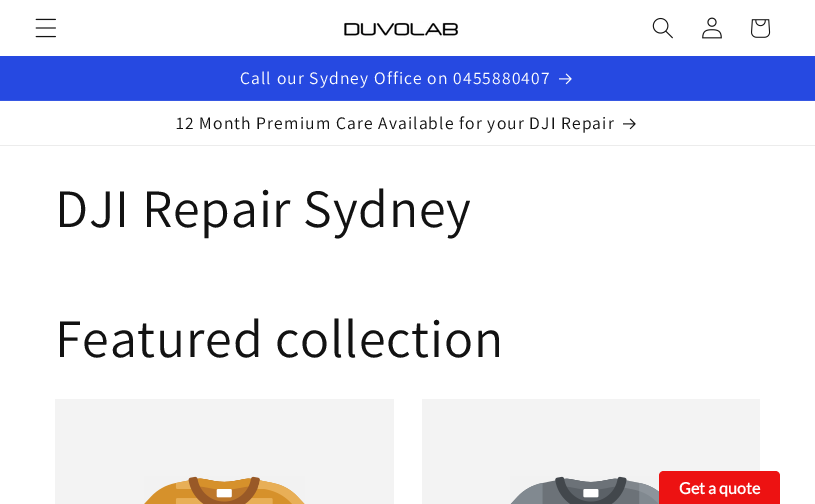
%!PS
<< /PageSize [815 504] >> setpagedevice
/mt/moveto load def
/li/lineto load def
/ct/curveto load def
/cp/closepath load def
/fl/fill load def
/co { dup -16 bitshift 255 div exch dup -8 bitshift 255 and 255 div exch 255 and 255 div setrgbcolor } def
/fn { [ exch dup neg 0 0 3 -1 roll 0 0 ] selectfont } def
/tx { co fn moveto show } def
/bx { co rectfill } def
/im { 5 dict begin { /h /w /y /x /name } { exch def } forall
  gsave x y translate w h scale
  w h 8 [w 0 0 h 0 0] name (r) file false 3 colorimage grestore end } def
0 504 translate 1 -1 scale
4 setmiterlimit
0 0 815 504 16#FFFFFF bx
(media/1.raw) 35 18 21 20 im
(media/2.raw) 343 20 116 18 im
(media/3.raw) 652 17 21 22 im
(media/4.raw) 702 17 20 22 im
(media/5.raw) 751 19 20 19 im
0 56 815 44 16#2649E1 bx
0 100 815 1 16#3758E3 bx
(media/6.raw) 559 73 13 12 im
0 145 815 1 16#ECECEC bx
(media/7.raw) 623 118 13 12 im
55 399 339 105 16#F3F3F3 bx
(media/8.raw) 144 476 161 28 im
422 399 338 105 16#F3F3F3 bx
(media/9.raw) 510 476 149 28 im
16#ED1212 co
664 471 mt 775 471 li 778 471 780 473 780 476 ct 780 504 li 659 504 li 659 476 li 659 473 661 471 664 471 ct cp fl
/Assistant-Regular 17.55 fn
16#FFFFFF co
240 84 mt 1.1 0 (Call our Sydney Office on 0455880407) ashow
16#121212 co
176 129 mt 1.1 0 (12 Month Premium Care Available for your DJI Repair) ashow
/Assistant-Regular 54 fn
55 227 mt .8 0 (DJI Repair Sydney) ashow
55 357 mt .8 0 (Featured collection) ashow
(Get a quote) 679 494 /Lato-Bold 16 16#FFFFFF tx
showpage
